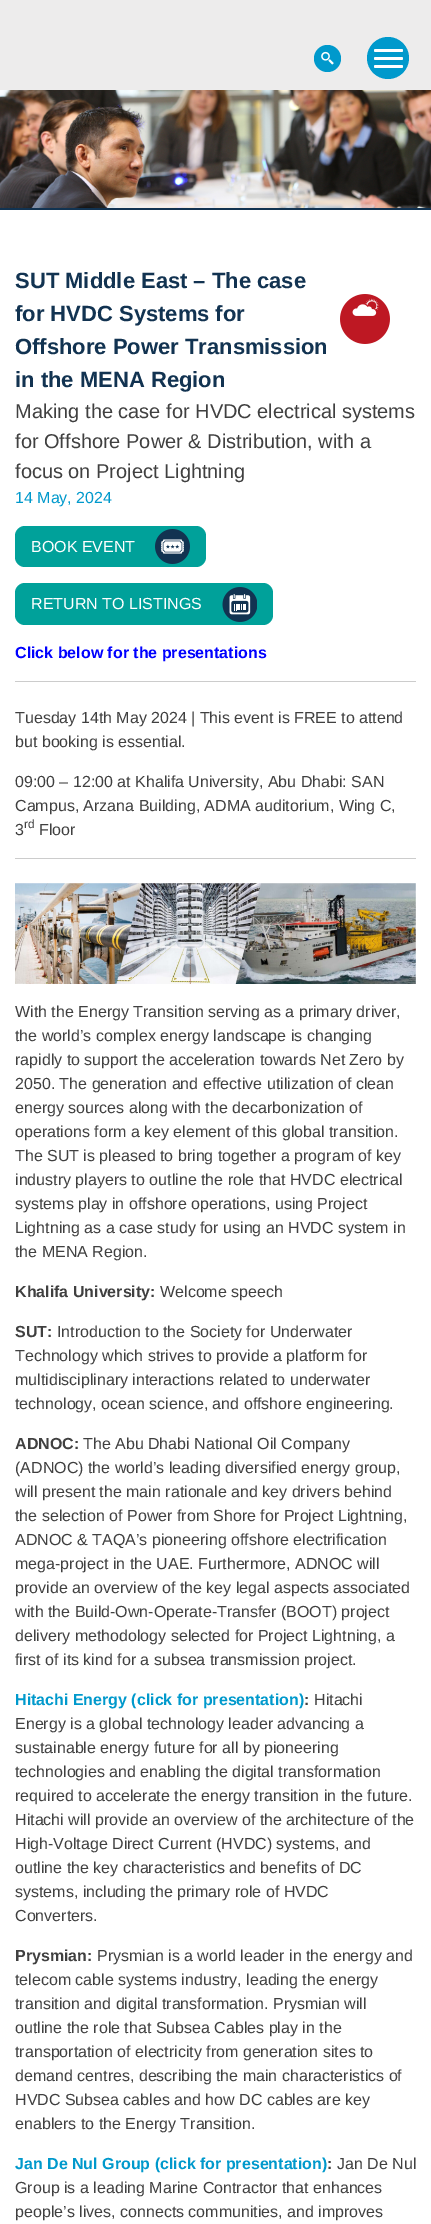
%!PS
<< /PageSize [431 2224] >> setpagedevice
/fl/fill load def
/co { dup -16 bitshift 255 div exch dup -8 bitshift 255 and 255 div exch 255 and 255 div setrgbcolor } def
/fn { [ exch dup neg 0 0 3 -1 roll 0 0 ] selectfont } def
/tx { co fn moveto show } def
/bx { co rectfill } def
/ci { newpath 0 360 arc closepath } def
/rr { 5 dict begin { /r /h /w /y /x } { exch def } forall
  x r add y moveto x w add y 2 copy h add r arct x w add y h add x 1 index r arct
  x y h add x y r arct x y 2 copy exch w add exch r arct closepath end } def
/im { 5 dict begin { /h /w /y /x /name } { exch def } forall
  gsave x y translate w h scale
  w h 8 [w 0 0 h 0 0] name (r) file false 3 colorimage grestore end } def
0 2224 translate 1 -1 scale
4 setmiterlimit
0 0 431 2224 16#FFFFFF bx
0 0 431 90 16#EDECEC bx
16#0099CC co
327.5 58.5 13.5 ci fl
(media/1.raw) 321 51 13 14 im
388 58 21 ci fl
16#FFFFFF co
374 49 29 3 1.5 rr fl
374 57 29 3 1.5 rr fl
374 65 29 3 1.5 rr fl
(media/2.raw) 0 90 431 118 im
0 208 431 2 16#123351 bx
(media/3.raw) 340 294 50 50 im
16#00A19A co
15 526 191 41 10 rr fl
(media/4.raw) 155 529 35 35 im
15 583 258 42 10 rr fl
(media/5.raw) 222 587 35 35 im
15 681 401 1 16#CCCCCC bx
15 858 401 1 16#CCCCCC bx
(media/6.raw) 15 883 401 101 im
(SUT Middle East – The case) 15 288 /LiberationSans-Bold 22 16#123351 tx
(for HVDC Systems for) 15 321 /LiberationSans-Bold 22 16#123351 tx
(Offshore Power Transmission) 15 354 /LiberationSans-Bold 22 16#123351 tx
(in the MENA Region) 15 387 /LiberationSans-Bold 22 16#123351 tx
(Making the case for HVDC electrical systems) 15 418 /LiberationSans-Regular 20 16#404040 tx
(for Offshore Power & Distribution, with a) 15 448 /LiberationSans-Regular 20 16#404040 tx
(focus on Project Lightning) 15 478 /LiberationSans-Regular 20 16#404040 tx
(14 May, 2024) 15 503 /LiberationSans-Regular 16 16#0099CC tx
(BOOK EVENT) 31 552 /LiberationSans-Regular 16 16#FFFFFF tx
(RETURN TO LISTINGS) 31 609 /LiberationSans-Regular 16 16#FFFFFF tx
(Click below for the presentations) 15 658 /LiberationSans-Bold 16 16#0000FF tx
(Tuesday 14th May 2024 | This event is FREE to attend) 15 723 /LiberationSans-Regular 16 16#404040 tx
(but booking is essential.) 15 747 /LiberationSans-Regular 16 16#404040 tx
(09:00 – 12:00 at Khalifa University, Abu Dhabi: SAN) 15 787 /LiberationSans-Regular 16 16#404040 tx
(Campus, Arzana Building, ADMA auditorium, Wing C,) 15 811 /LiberationSans-Regular 16 16#404040 tx
(3) 15 835 /LiberationSans-Regular 16 16#404040 tx
(rd) 24 828 /LiberationSans-Regular 12 16#404040 tx
(Floor) 39 835 /LiberationSans-Regular 16 16#404040 tx
(With the Energy Transition serving as a primary driver,) 15 1017 /LiberationSans-Regular 16 16#404040 tx
(the world’s complex energy landscape is changing) 15 1041 /LiberationSans-Regular 16 16#404040 tx
(rapidly to support the acceleration towards Net Zero by) 15 1065 /LiberationSans-Regular 16 16#404040 tx
(2050. The generation and effective utilization of clean) 15 1089 /LiberationSans-Regular 16 16#404040 tx
(energy sources along with the decarbonization of) 15 1113 /LiberationSans-Regular 16 16#404040 tx
(operations form a key element of this global transition.) 15 1137 /LiberationSans-Regular 16 16#404040 tx
(The SUT is pleased to bring together a program of key) 15 1161 /LiberationSans-Regular 16 16#404040 tx
(industry players to outline the role that HVDC electrical) 15 1185 /LiberationSans-Regular 16 16#404040 tx
(systems play in offshore operations, using Project) 15 1209 /LiberationSans-Regular 16 16#404040 tx
(Lightning as a case study for using an HVDC system in) 15 1233 /LiberationSans-Regular 16 16#404040 tx
(the MENA Region.) 15 1257 /LiberationSans-Regular 16 16#404040 tx
(Khalifa University:) 15 1297 /LiberationSans-Bold 16 16#404040 tx
(Welcome speech) 160 1297 /LiberationSans-Regular 16 16#404040 tx
(SUT:) 15 1337 /LiberationSans-Bold 16 16#404040 tx
(Introduction to the Society for Underwater) 57 1337 /LiberationSans-Regular 16 16#404040 tx
(Technology which strives to provide a platform for) 15 1361 /LiberationSans-Regular 16 16#404040 tx
(multidisciplinary interactions related to underwater) 15 1385 /LiberationSans-Regular 16 16#404040 tx
(technology, ocean science, and offshore engineering.) 15 1409 /LiberationSans-Regular 16 16#404040 tx
(ADNOC:) 15 1449 /LiberationSans-Bold 16 16#404040 tx
(The Abu Dhabi National Oil Company) 83 1449 /LiberationSans-Regular 16 16#404040 tx
(\(ADNOC\) the world’s leading diversified energy group,) 15 1473 /LiberationSans-Regular 16 16#404040 tx
(will present the main rationale and key drivers behind) 15 1497 /LiberationSans-Regular 16 16#404040 tx
(the selection of Power from Shore for Project Lightning,) 15 1521 /LiberationSans-Regular 16 16#404040 tx
(ADNOC & TAQA’s pioneering offshore electrification) 15 1545 /LiberationSans-Regular 16 16#404040 tx
(mega-project in the UAE. Furthermore, ADNOC will) 15 1569 /LiberationSans-Regular 16 16#404040 tx
(provide an overview of the key legal aspects associated) 15 1593 /LiberationSans-Regular 16 16#404040 tx
(with the Build-Own-Operate-Transfer \(BOOT\) project) 15 1617 /LiberationSans-Regular 16 16#404040 tx
(delivery methodology selected for Project Lightning, a) 15 1641 /LiberationSans-Regular 16 16#404040 tx
(first of its kind for a subsea transmission project.) 15 1665 /LiberationSans-Regular 16 16#404040 tx
(Hitachi Energy \(click for presentation\)) 15 1705 /LiberationSans-Bold 16 16#0099CC tx
(:) 304 1705 /LiberationSans-Bold 16 16#404040 tx
(Hitachi) 314 1705 /LiberationSans-Regular 16 16#404040 tx
(Energy is a global technology leader advancing a) 15 1729 /LiberationSans-Regular 16 16#404040 tx
(sustainable energy future for all by pioneering) 15 1753 /LiberationSans-Regular 16 16#404040 tx
(technologies and enabling the digital transformation) 15 1777 /LiberationSans-Regular 16 16#404040 tx
(required to accelerate the energy transition in the future.) 15 1801 /LiberationSans-Regular 16 16#404040 tx
(Hitachi will provide an overview of the architecture of the) 15 1825 /LiberationSans-Regular 16 16#404040 tx
(High-Voltage Direct Current \(HVDC\) systems, and) 15 1849 /LiberationSans-Regular 16 16#404040 tx
(outline the key characteristics and benefits of DC) 15 1873 /LiberationSans-Regular 16 16#404040 tx
(systems, including the primary role of HVDC) 15 1897 /LiberationSans-Regular 16 16#404040 tx
(Converters.) 15 1921 /LiberationSans-Regular 16 16#404040 tx
(Prysmian:) 15 1961 /LiberationSans-Bold 16 16#404040 tx
(Prysmian is a world leader in the energy and) 97 1961 /LiberationSans-Regular 16 16#404040 tx
(telecom cable systems industry, leading the energy) 15 1985 /LiberationSans-Regular 16 16#404040 tx
(transition and digital transformation. Prysmian will) 15 2009 /LiberationSans-Regular 16 16#404040 tx
(outline the role that Subsea Cables play in the) 15 2033 /LiberationSans-Regular 16 16#404040 tx
(transportation of electricity from generation sites to) 15 2057 /LiberationSans-Regular 16 16#404040 tx
(demand centres, describing the main characteristics of) 15 2081 /LiberationSans-Regular 16 16#404040 tx
(HVDC Subsea cables and how DC cables are key) 15 2105 /LiberationSans-Regular 16 16#404040 tx
(enablers to the Energy Transition.) 15 2129 /LiberationSans-Regular 16 16#404040 tx
(Jan De Nul Group \(click for presentation\)) 15 2169 /LiberationSans-Bold 16 16#0099CC tx
(:) 327 2169 /LiberationSans-Bold 16 16#404040 tx
(Jan De Nul) 337 2169 /LiberationSans-Regular 16 16#404040 tx
(Group is a leading Marine Contractor that enhances) 15 2193 /LiberationSans-Regular 16 16#404040 tx
(people’s lives, connects communities, and improves) 15 2217 /LiberationSans-Regular 16 16#404040 tx
showpage
